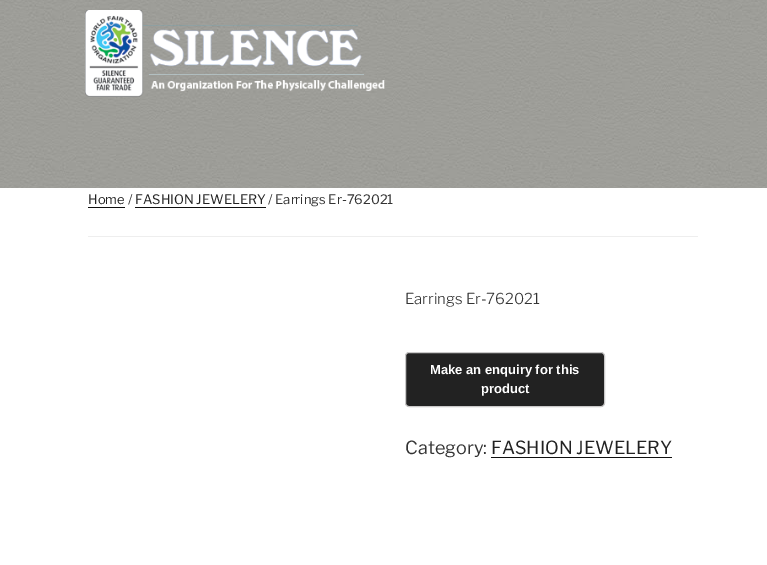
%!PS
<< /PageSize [767 565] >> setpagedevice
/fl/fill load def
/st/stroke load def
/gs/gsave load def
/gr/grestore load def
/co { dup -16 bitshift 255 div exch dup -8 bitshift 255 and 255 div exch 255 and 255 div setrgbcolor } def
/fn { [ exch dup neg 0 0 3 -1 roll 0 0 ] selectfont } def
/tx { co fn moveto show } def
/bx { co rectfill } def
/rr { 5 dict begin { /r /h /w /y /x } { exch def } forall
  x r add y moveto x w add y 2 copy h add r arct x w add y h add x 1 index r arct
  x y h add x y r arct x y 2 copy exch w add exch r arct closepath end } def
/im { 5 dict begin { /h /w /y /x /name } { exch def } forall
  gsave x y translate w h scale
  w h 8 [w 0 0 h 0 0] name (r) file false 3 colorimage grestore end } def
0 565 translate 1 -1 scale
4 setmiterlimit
0 0 767 565 16#FFFFFF bx
0 0 767 188 16#575656 bx
(media/1.raw) 0 0 767 188 im
(media/2.raw) 85 10 300 87 im
88 236 610 1 16#EEEEEE bx
88 207 37 1 16#0F0F0F bx
135 207 131 1 16#0F0F0F bx
16#222222 co
405.5 352.5 199 54 3.5 rr gs fl gr
16#CAC9C9 co
st
491 457 181 1 16#0F0F0F bx
(Home) 88 204 /LibreFranklin-Thin 13 16#222222 tx
(/) 128 204 /LibreFranklin-Thin 13 16#333333 tx
(FASHION JEWELERY) 135 204 /LibreFranklin-Thin 13 16#222222 tx
(/ Earrings Er-762021) 268 204 /LibreFranklin-Thin 13 16#333333 tx
(Earrings Er-762021) 405 304 /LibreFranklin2-Thin 15 16#333333 tx
(Make an enquiry for this) 430 374 /LiberationSans-Bold 13 16#FFFFFF tx
(product) 481 393 /LiberationSans-Bold 13 16#FFFFFF tx
(Category:) 405 454 /LibreFranklin-Thin 18 16#333333 tx
(FASHION JEWELERY) 491 454 /LibreFranklin-Thin 18 16#222222 tx
showpage
